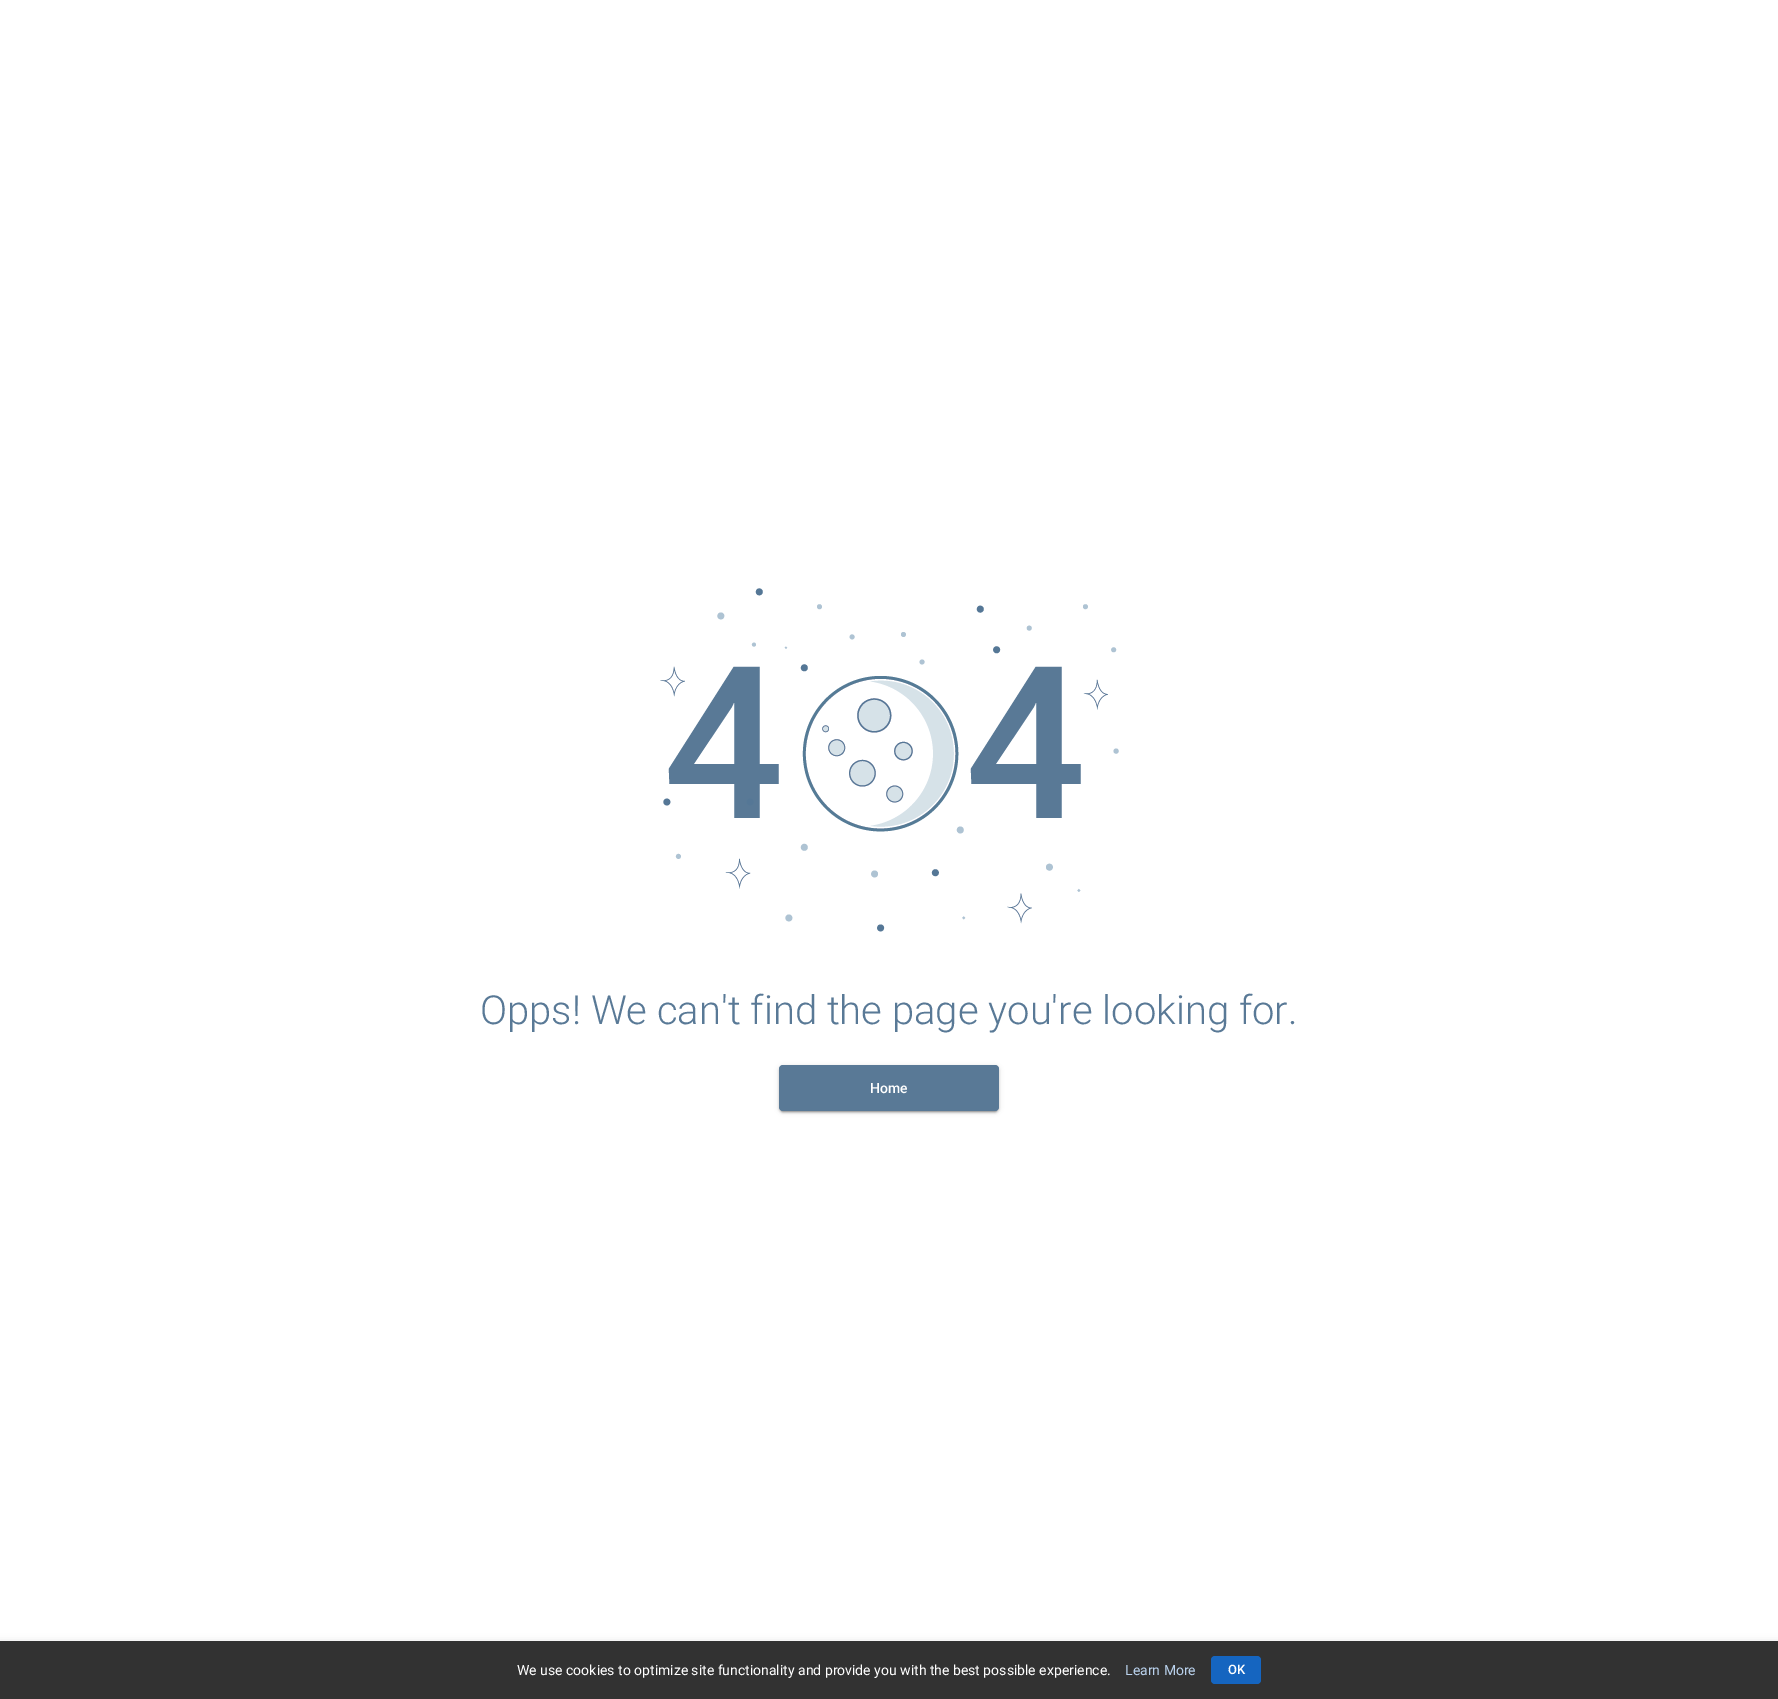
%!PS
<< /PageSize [1778 1699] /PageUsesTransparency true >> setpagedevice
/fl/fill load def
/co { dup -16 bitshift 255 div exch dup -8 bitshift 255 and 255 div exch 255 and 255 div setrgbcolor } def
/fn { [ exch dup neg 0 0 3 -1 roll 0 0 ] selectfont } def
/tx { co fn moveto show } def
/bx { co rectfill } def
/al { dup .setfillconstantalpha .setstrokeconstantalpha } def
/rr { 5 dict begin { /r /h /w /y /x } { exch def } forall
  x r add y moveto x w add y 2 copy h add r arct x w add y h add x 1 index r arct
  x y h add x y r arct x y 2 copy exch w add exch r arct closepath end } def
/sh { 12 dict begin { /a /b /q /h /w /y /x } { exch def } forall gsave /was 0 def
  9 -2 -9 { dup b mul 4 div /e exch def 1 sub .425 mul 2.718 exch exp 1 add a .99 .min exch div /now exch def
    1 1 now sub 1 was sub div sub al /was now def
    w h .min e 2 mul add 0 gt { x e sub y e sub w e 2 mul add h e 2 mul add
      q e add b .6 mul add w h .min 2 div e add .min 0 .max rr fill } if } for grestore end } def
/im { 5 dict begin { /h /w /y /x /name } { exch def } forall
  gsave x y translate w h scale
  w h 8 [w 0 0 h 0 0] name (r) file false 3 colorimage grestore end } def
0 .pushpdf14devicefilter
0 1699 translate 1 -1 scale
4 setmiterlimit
0 0 1778 1699 16#FFFFFF bx
(media/1.raw) 660 588 459 344 im
16#000000 co
779 1066 220 46 4 2.5 .12 sh
779 1067 220 46 4 1 .14 sh
781 1070 216 42 2 .5 .2 sh
16#597996 co
779 1065 220 46 4 rr fl
16#000000 co
0 1642 1778 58 0 4 .12 sh
0 1641 1778 58 16#323232 bx
16#1565C0 co
1211 1656 50 28 4 rr fl
(Opps! We can't find the page you're looking for.) 480 1024 /Roboto-Light 40 16#597996 tx
(Home) 870 1093 /Roboto-Medium 14 16#FFFFFF tx
(We use cookies to optimize site functionality and provide you with the best possible experience.) 517 1675 /Roboto-Regular 14 16#FFFFFF tx
(Learn More) 1125 1675 /Roboto-Regular 14 16#B9D1EC tx
(OK) 1228 1674 /Roboto-Medium 13 16#FFFFFF tx
.poppdf14devicefilter showpage
